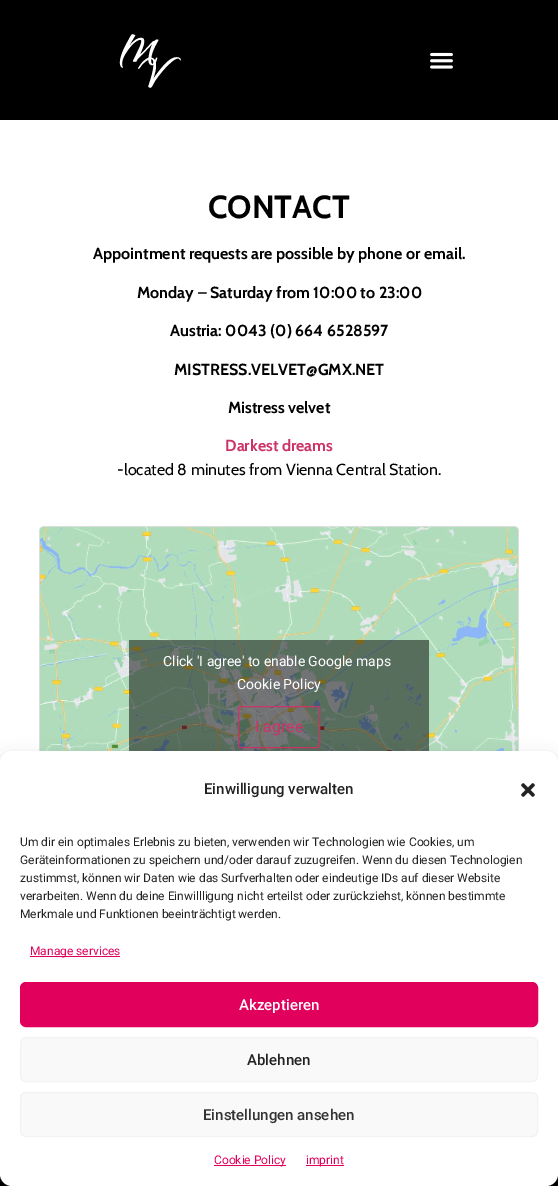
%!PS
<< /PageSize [558 1186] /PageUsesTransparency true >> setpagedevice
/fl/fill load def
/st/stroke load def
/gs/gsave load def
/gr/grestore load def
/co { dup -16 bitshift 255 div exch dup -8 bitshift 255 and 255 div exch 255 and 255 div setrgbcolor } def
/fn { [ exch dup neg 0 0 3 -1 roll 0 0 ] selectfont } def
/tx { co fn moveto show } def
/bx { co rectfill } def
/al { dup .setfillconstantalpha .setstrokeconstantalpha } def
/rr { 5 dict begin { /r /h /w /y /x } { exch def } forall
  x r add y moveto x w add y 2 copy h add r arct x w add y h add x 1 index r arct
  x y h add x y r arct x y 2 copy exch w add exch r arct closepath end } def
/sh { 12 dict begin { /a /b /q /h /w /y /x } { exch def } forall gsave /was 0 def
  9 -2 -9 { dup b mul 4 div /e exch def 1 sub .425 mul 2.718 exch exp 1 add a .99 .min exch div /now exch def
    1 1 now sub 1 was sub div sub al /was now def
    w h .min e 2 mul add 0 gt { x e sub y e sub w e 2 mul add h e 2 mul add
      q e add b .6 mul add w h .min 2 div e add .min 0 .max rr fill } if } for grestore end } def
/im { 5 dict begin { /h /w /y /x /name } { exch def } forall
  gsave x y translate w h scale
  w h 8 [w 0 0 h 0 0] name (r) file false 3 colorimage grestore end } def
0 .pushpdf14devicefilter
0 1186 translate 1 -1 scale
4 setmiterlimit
0 0 558 1186 16#FFFFFF bx
0 0 558 120 16#000000 bx
(media/1.raw) 119 34 62 54 im
(media/2.raw) 430 52 23 17 im
gs
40 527 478 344 rectclip
40 528 478 344 3 5 .15 sh
gr
40 527 478 344 3 .5 .5 sh
(media/3.raw) 40 527 478 224 im
0.5 al
129 640 300 111 16#000000 bx
1 al
16#CC3366 co
238.5 706.5 81 41 2.5 rr st
0 1174 558 12 16#000000 bx
0 757 558 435 12 3 .23 sh
0 761 558 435 12 10 .19 sh
16#FFFFFF co
0 751 558 435 12 rr fl
(media/4.raw) 521 783 14 14 im
30 956 90 1 16#E1005C bx
20.5 982.5 517 44 5.5 rr gs fl gr
st
16#F9F9F9 co
20.5 1037.5 517 44 5.5 rr gs fl gr
16#F2F2F2 co
st
16#F9F9F9 co
20.5 1092.5 517 44 5.5 rr gs fl gr
16#F2F2F2 co
st
214 1165 72 1 16#E1005C bx
306 1165 38 1 16#E1005C bx
(CONTACT) 208 218 /Cabin-Bold 32 16#000000 tx
(Appointment requests are possible by phone or email.) 93 259 /Cabin-Bold 16 16#000000 tx
(Monday – Saturday from 10:00 to 23:00) 137 298 /Cabin-Bold 16 16#000000 tx
(Austria: 0043 \(0\) 664 6528597) 170 336 /Cabin-Bold 16 16#000000 tx
(MISTRESS.VELVET@GMX.NET) 174 375 /Cabin-Bold 16 16#000000 tx
(Mistress velvet) 228 413 /Cabin-Bold 16 16#000000 tx
(Darkest dreams) 225 451 /Cabin-Bold 16 16#CC3366 tx
(-located 8 minutes from Vienna Central Station.) 117 475 /Cabin-Regular 16 16#000000 tx
(Click 'I agree' to enable Google maps) 163 666 /Roboto-Regular 14 16#FFFFFF tx
(Cookie Policy) 237 689 /Roboto-Regular 14 16#FFFFFF tx
(I agree) 255 732 /Roboto-Regular 16 16#CC3366 tx
(Einwilligung verwalten) 204 794 /Roboto-Medium 15 16#222222 tx
(Um dir ein optimales Erlebnis zu bieten, verwenden wir Technologien wie Cookies, um) 20 846 /Roboto-Regular 12 16#222222 tx
(Geräteinformationen zu speichern und/oder darauf zuzugreifen. Wenn du diesen Technologien) 20 864 /Roboto-Regular 12 16#222222 tx
(zustimmst, können wir Daten wie das Surfverhalten oder eindeutige IDs auf dieser Website) 20 882 /Roboto-Regular 12 16#222222 tx
(verarbeiten. Wenn du deine Einwillligung nicht erteilst oder zurückziehst, können bestimmte) 20 900 /Roboto-Regular 12 16#222222 tx
(Merkmale und Funktionen beeinträchtigt werden.) 20 918 /Roboto-Regular 12 16#222222 tx
(Manage services) 30 955 /Roboto-Regular 12 16#E1005C tx
(Akzeptieren) 239 1010 /Roboto-Medium 15 16#FFFFFF tx
(Ablehnen) 247 1065 /Roboto-Medium 15 16#222222 tx
(Einstellungen ansehen) 203 1120 /Roboto-Medium 15 16#333333 tx
(Cookie Policy) 214 1164 /Roboto-Regular 12 16#E1005C tx
(imprint) 306 1164 /Roboto-Regular 12 16#E1005C tx
.poppdf14devicefilter showpage
